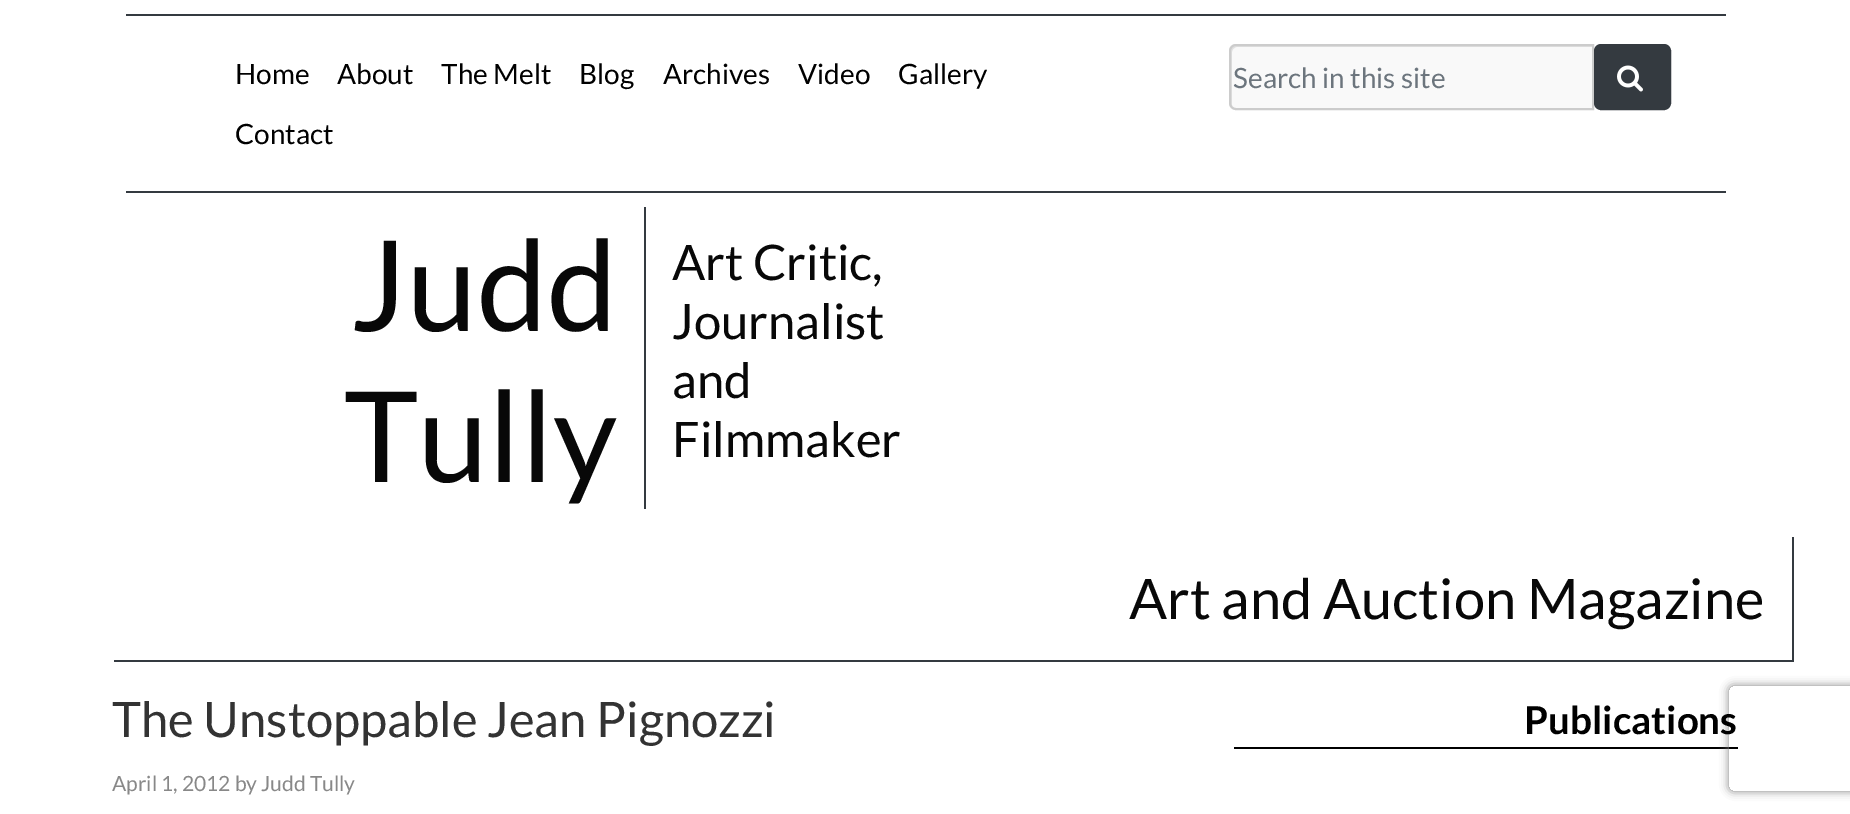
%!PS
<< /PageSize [1850 814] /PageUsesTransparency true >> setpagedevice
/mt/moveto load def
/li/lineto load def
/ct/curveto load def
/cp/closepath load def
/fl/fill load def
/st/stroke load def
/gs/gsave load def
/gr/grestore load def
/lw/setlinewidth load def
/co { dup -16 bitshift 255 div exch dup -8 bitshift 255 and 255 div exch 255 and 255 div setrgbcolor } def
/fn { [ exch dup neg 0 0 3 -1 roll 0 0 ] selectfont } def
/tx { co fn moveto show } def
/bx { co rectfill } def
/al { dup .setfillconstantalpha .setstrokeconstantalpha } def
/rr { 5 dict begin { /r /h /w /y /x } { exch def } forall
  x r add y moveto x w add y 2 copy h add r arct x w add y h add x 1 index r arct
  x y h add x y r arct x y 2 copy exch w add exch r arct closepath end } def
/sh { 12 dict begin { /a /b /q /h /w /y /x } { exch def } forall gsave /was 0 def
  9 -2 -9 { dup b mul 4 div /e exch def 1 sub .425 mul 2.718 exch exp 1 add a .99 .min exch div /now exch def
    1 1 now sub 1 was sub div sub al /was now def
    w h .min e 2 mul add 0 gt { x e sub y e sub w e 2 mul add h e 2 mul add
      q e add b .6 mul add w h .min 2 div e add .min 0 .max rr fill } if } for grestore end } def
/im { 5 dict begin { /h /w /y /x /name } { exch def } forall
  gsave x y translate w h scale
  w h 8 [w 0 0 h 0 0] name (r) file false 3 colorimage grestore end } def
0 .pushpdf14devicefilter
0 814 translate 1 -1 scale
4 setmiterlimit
0 0 1850 814 16#FFFFFF bx
126 14 1600 2 16#343A40 bx
126 191 1600 2 16#343A40 bx
16#F9F9F9 co
1236 44 mt 1594 44 li 1594 110 li 1236 110 li 1232 110 1229 107 1229 103 ct 1229 51 li 1229 47 1232 44 1236 44 ct cp fl
16#E0E0E0 co
1237 47 mt 1593 47 li 1593 46 li 1235 46 li 1232 46 1230 48 1230 51 ct 1230 104 li 1230 106 1231 108 1234 109 ct 1233 108 1232 107 1232 105 ct 1232 52 li 1232 50 1234 47 1237 47 ct cp fl
16#CCCCCC co
2 lw
1236 45 mt 1593 45 li 1593 109 li 1236 109 li 1232.5 109 1230 106.5 1230 103 ct 1230 51 li 1230 47.5 1232.5 45 1236 45 ct cp st
16#343A40 co
1595 45 75 64 6 rr gs fl gr
st
(media/1.raw) 1617 65 26 27 im
644 207 2 302 16#343A40 bx
1792 537 2 125 16#343A40 bx
114 660 1680 2 16#343A40 bx
1234 747 504 2 16#000000 bx
gs
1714 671 mt 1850 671 li 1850 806 li 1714 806 li cp 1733 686 mt 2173 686 li 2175 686 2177 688 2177 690 ct 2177 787 li 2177 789 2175 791 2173 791 ct 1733 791 li 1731 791 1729 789 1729 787 ct 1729 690 li 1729 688 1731 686 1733 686 ct cp eoclip newpath
16#808080 co
1729 686 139 105 4 4.5 1 sh
gr
(Home) 235 84 /Lato-Regular 28 16#000000 tx
(About) 337 84 /Lato-Regular 28 16#000000 tx
(The Melt) 441 84 /Lato-Regular 28 16#000000 tx
(Blog) 579 84 /Lato-Regular 28 16#000000 tx
(Archives) 663 84 /Lato-Regular 28 16#000000 tx
(Video) 798 84 /Lato-Regular 28 16#000000 tx
(Gallery) 898 84 /Lato-Regular 28 16#000000 tx
(Contact) 235 144 /Lato-Regular 28 16#000000 tx
(Search in this site) 1233 88 /Lato-Regular 28 16#6C757D tx
(Judd) 351 331 /Lato-Regular 126 16#080808 tx
(Tully) 344 482 /Lato-Regular 126 16#080808 tx
(Art Critic,) 672 280 /Lato-Regular 49 16#080808 tx
(Journalist) 672 339 /Lato-Regular 49 16#080808 tx
(and) 672 398 /Lato-Regular 49 16#080808 tx
(Filmmaker) 672 457 /Lato-Regular 49 16#080808 tx
(Art and Auction Magazine) 1129 619 /Lato-Regular 56 16#080808 tx
(The Unstoppable Jean Pignozzi) 112 737 /Lato-Regular 49 16#333333 tx
(April 1, 2012 by Judd Tully) 112 791 /Lato-Regular 21 16#888888 tx
(Publications) 1524 734 /Lato-Bold 38.5 16#000000 tx
.poppdf14devicefilter showpage
